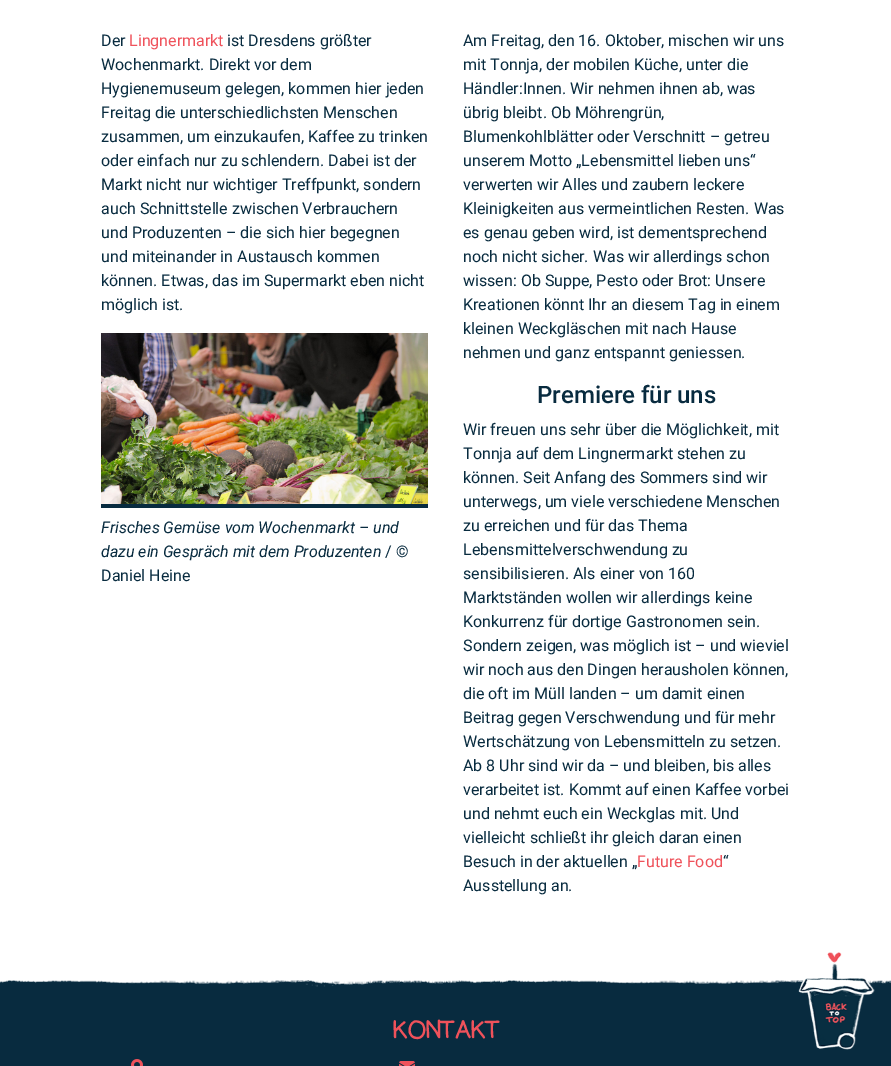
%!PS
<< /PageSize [891 1066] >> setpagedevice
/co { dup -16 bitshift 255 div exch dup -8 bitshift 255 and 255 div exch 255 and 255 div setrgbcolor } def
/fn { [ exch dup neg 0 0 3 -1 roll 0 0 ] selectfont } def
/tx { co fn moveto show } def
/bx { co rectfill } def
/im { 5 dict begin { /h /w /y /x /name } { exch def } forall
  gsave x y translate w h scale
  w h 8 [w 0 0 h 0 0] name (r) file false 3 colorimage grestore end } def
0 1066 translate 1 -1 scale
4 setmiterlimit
0 0 891 1066 16#FFFFFF bx
(media/1.raw) 101 333 327 171 im
101 504 327 4 16#082B3F bx
(media/2.raw) 0 980 891 8 im
0 988 891 78 16#082B3F bx
(media/3.raw) 131 1059 12 7 im
(media/4.raw) 399 1061 16 5 im
(media/5.raw) 798 952 77 98 im
(Der) 101 46 /Roboto-Regular 16 16#082B3F tx
(Lingnermarkt) 129 46 /Roboto-Regular 16 16#EF525B tx
(ist Dresdens größter) 227 46 /Roboto-Regular 16 16#082B3F tx
(Wochenmarkt. Direkt vor dem) 101 70 /Roboto-Regular 16 16#082B3F tx
(Hygienemuseum gelegen, kommen hier jeden) 101 94 /Roboto-Regular 16 16#082B3F tx
(Freitag die unterschiedlichsten Menschen) 101 118 /Roboto-Regular 16 16#082B3F tx
(zusammen, um einzukaufen, Kaffee zu trinken) 101 142 /Roboto-Regular 16 16#082B3F tx
(oder einfach nur zu schlendern. Dabei ist der) 101 166 /Roboto-Regular 16 16#082B3F tx
(Markt nicht nur wichtiger Treffpunkt, sondern) 101 190 /Roboto-Regular 16 16#082B3F tx
(auch Schnittstelle zwischen Verbrauchern) 101 214 /Roboto-Regular 16 16#082B3F tx
(und Produzenten – die sich hier begegnen) 101 238 /Roboto-Regular 16 16#082B3F tx
(und miteinander in Austausch kommen) 101 262 /Roboto-Regular 16 16#082B3F tx
(können. Etwas, das im Supermarkt eben nicht) 101 286 /Roboto-Regular 16 16#082B3F tx
(möglich ist.) 101 310 /Roboto-Regular 16 16#082B3F tx
(Am Freitag, den 16. Oktober, mischen wir uns) 463 46 /Roboto-Regular 16 16#082B3F tx
(mit Tonnja, der mobilen Küche, unter die) 463 70 /Roboto-Regular 16 16#082B3F tx
(Händler:Innen. Wir nehmen ihnen ab, was) 463 94 /Roboto-Regular 16 16#082B3F tx
(übrig bleibt. Ob Möhrengrün,) 463 118 /Roboto-Regular 16 16#082B3F tx
(Blumenkohlblätter oder Verschnitt – getreu) 463 142 /Roboto-Regular 16 16#082B3F tx
(unserem Motto „Lebensmittel lieben uns“) 463 166 /Roboto-Regular 16 16#082B3F tx
(verwerten wir Alles und zaubern leckere) 463 190 /Roboto-Regular 16 16#082B3F tx
(Kleinigkeiten aus vermeintlichen Resten. Was) 463 214 /Roboto-Regular 16 16#082B3F tx
(es genau geben wird, ist dementsprechend) 463 238 /Roboto-Regular 16 16#082B3F tx
(noch nicht sicher. Was wir allerdings schon) 463 262 /Roboto-Regular 16 16#082B3F tx
(wissen: Ob Suppe, Pesto oder Brot: Unsere) 463 286 /Roboto-Regular 16 16#082B3F tx
(Kreationen könnt Ihr an diesem Tag in einem) 463 310 /Roboto-Regular 16 16#082B3F tx
(kleinen Weckgläschen mit nach Hause) 463 334 /Roboto-Regular 16 16#082B3F tx
(nehmen und ganz entspannt geniessen.) 463 358 /Roboto-Regular 16 16#082B3F tx
(Premiere für uns) 537 403 /Roboto-Medium 24 16#082B3F tx
(Frisches Gemüse vom Wochenmarkt – und) 101 533 /Roboto-Italic 16 16#082B3F tx
(dazu ein Gespräch mit dem Produzenten) 101 557 /Roboto-Italic 16 16#082B3F tx
(/ ©) 385 557 /Roboto-Regular 16 16#082B3F tx
(Daniel Heine) 101 581 /Roboto-Regular 16 16#082B3F tx
(Wir freuen uns sehr über die Möglichkeit, mit) 463 435 /Roboto-Regular 16 16#082B3F tx
(Tonnja auf dem Lingnermarkt stehen zu) 463 459 /Roboto-Regular 16 16#082B3F tx
(können. Seit Anfang des Sommers sind wir) 463 483 /Roboto-Regular 16 16#082B3F tx
(unterwegs, um viele verschiedene Menschen) 463 507 /Roboto-Regular 16 16#082B3F tx
(zu erreichen und für das Thema) 463 531 /Roboto-Regular 16 16#082B3F tx
(Lebensmittelverschwendung zu) 463 555 /Roboto-Regular 16 16#082B3F tx
(sensibilisieren. Als einer von 160) 463 579 /Roboto-Regular 16 16#082B3F tx
(Marktständen wollen wir allerdings keine) 463 603 /Roboto-Regular 16 16#082B3F tx
(Konkurrenz für dortige Gastronomen sein.) 463 627 /Roboto-Regular 16 16#082B3F tx
(Sondern zeigen, was möglich ist – und wieviel) 463 651 /Roboto-Regular 16 16#082B3F tx
(wir noch aus den Dingen herausholen können,) 463 675 /Roboto-Regular 16 16#082B3F tx
(die oft im Müll landen – um damit einen) 463 699 /Roboto-Regular 16 16#082B3F tx
(Beitrag gegen Verschwendung und für mehr) 463 723 /Roboto-Regular 16 16#082B3F tx
(Wertschätzung von Lebensmitteln zu setzen.) 463 747 /Roboto-Regular 16 16#082B3F tx
(Ab 8 Uhr sind wir da – und bleiben, bis alles) 463 771 /Roboto-Regular 16 16#082B3F tx
(verarbeitet ist. Kommt auf einen Kaffee vorbei) 463 795 /Roboto-Regular 16 16#082B3F tx
(und nehmt euch ein Weckglas mit. Und) 463 819 /Roboto-Regular 16 16#082B3F tx
(vielleicht schließt ihr gleich daran einen) 463 843 /Roboto-Regular 16 16#082B3F tx
(Besuch in der aktuellen „) 463 867 /Roboto-Regular 16 16#082B3F tx
(Future Food) 637 867 /Roboto-Regular 16 16#EF525B tx
(“) 723 867 /Roboto-Regular 16 16#082B3F tx
(Ausstellung an.) 463 891 /Roboto-Regular 16 16#082B3F tx
(KONTAKT) 392 1038 /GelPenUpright-Medium 24 16#EF525B tx
showpage
